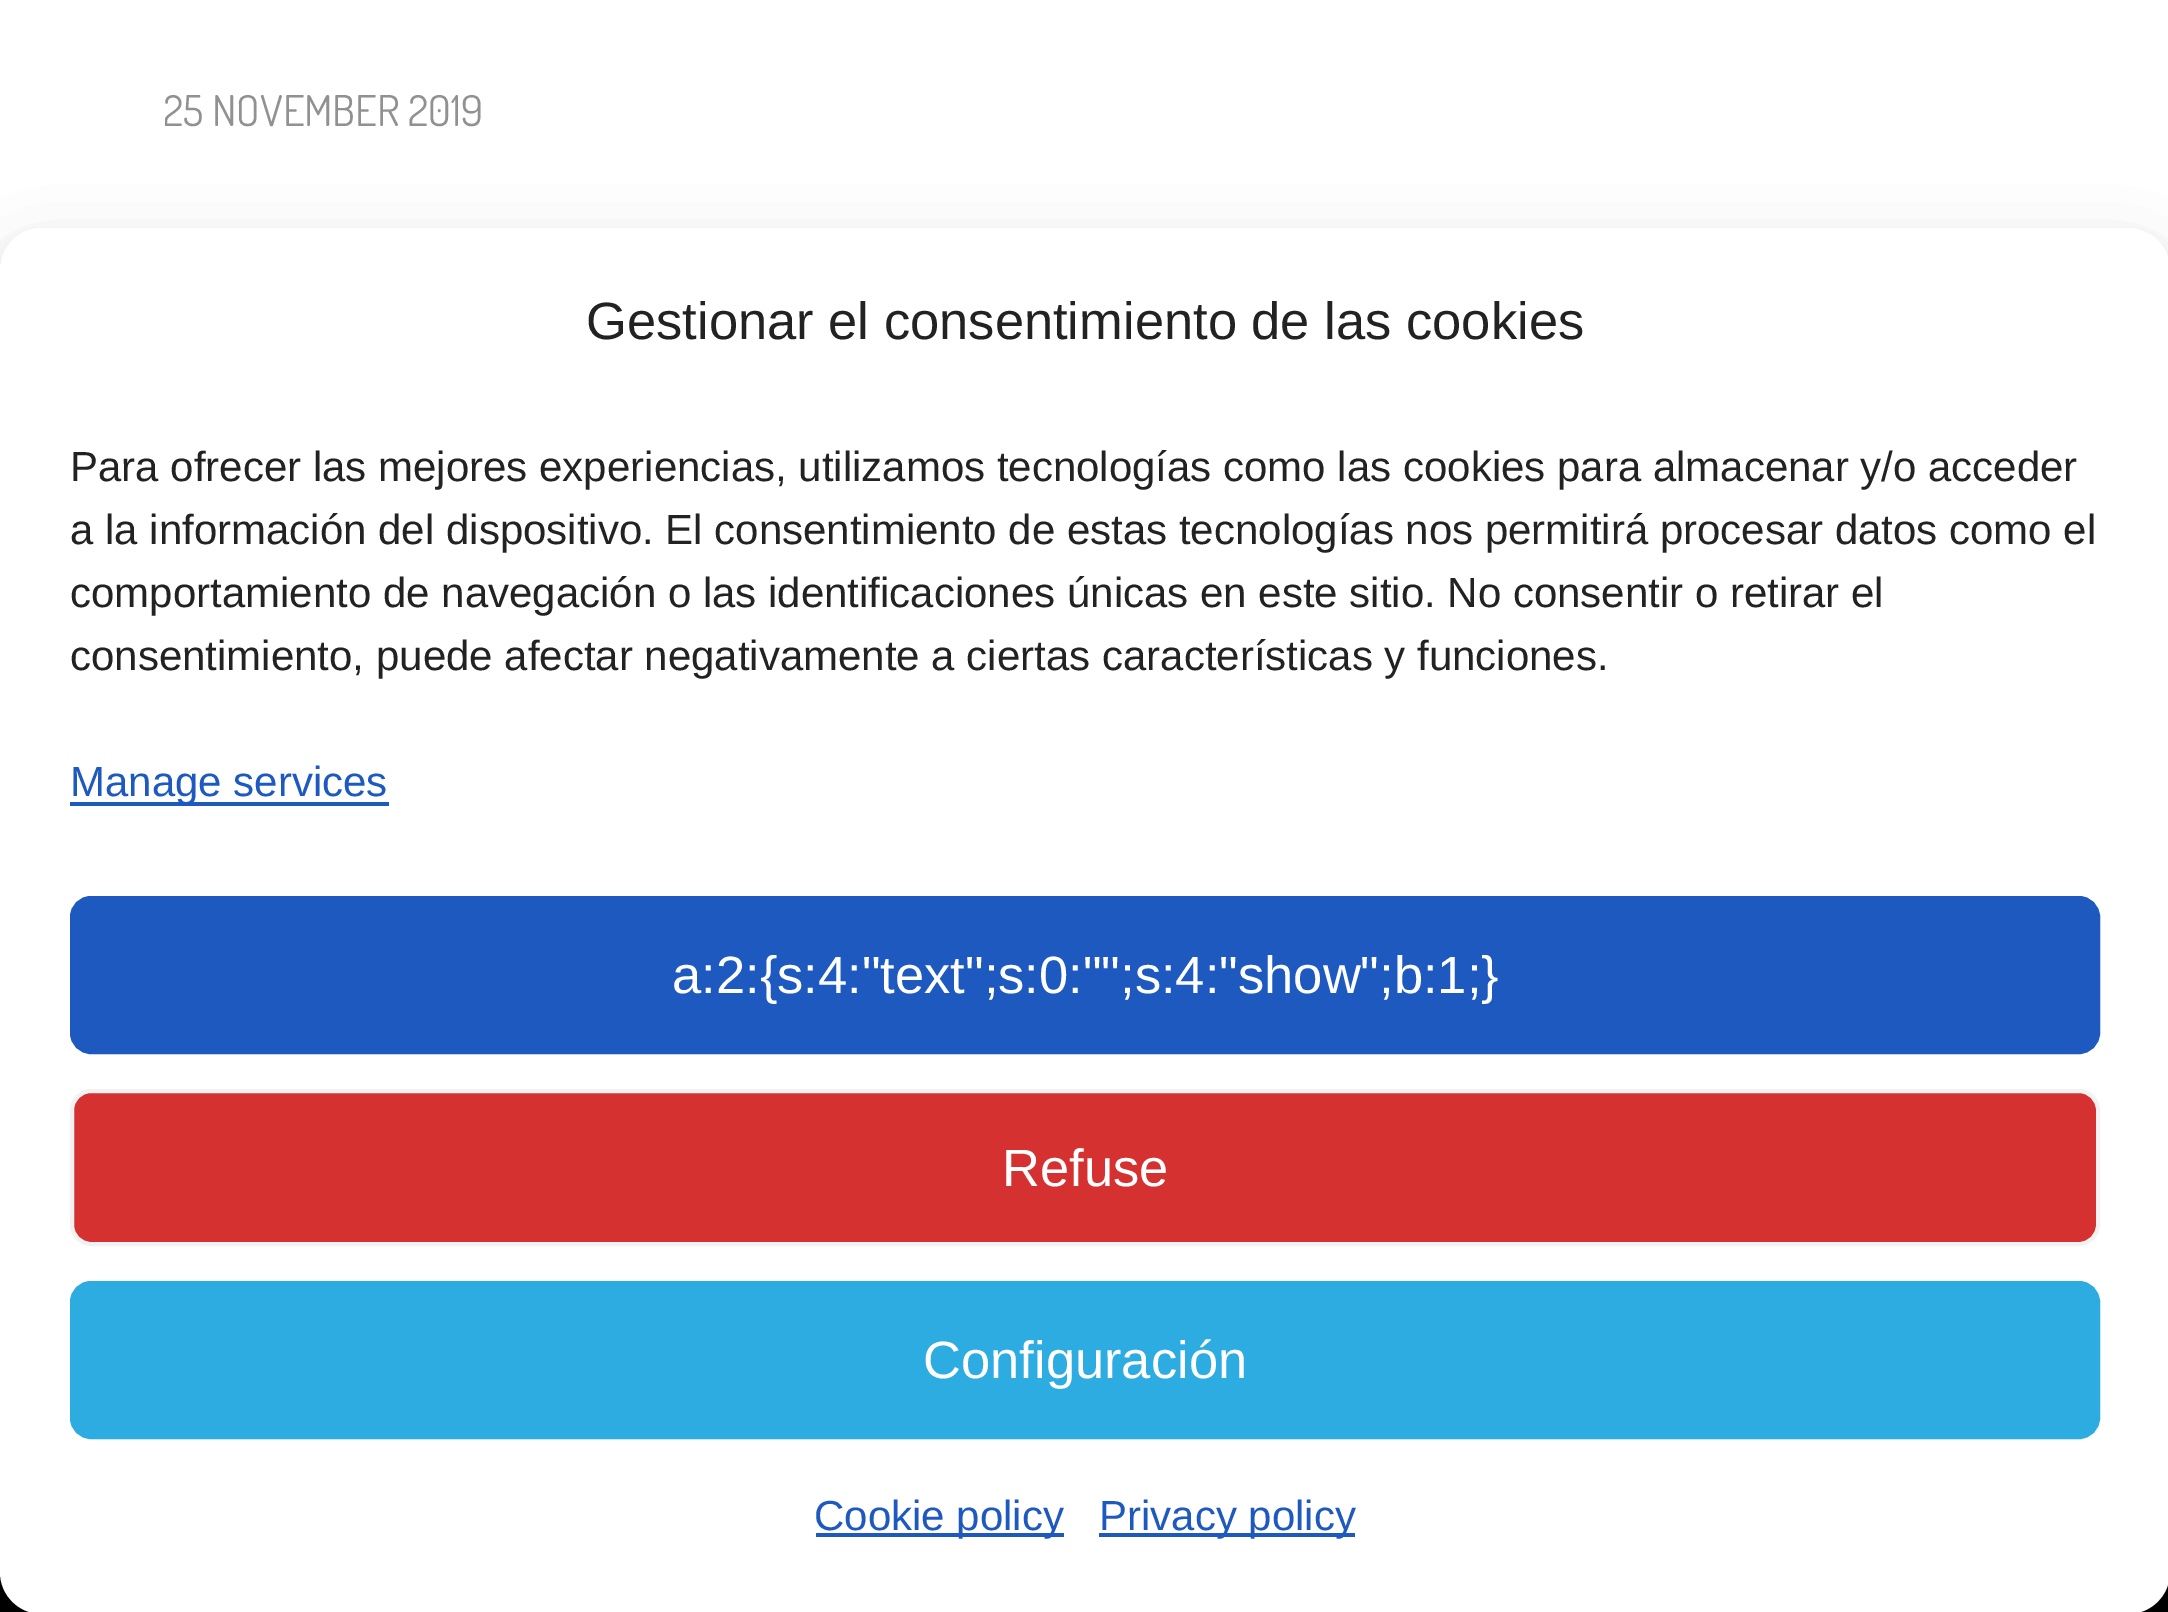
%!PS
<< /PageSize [2168 1612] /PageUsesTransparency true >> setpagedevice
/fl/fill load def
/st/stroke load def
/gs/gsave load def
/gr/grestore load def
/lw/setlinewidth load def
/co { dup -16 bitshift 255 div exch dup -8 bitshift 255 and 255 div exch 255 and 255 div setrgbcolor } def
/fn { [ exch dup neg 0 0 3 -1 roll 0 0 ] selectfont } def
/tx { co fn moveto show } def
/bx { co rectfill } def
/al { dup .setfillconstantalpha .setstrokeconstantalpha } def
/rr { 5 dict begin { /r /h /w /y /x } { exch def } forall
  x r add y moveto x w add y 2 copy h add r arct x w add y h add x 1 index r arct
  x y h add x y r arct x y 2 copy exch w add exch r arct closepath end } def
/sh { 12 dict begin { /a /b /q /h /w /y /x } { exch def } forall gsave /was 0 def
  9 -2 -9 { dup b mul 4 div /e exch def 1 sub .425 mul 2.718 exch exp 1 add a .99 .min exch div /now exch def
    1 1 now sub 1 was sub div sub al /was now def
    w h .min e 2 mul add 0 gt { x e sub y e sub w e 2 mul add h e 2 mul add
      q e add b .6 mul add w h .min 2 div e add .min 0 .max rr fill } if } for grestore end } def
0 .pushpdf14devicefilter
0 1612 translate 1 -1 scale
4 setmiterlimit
0 0 2168 1612 16#FFFFFF bx
0 1572 2168 40 16#000000 bx
0 249 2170 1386 42 10.5 .23 sh
0 263 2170 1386 42 35 .19 sh
16#FFFFFF co
0 228 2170 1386 42 rr fl
70 802 319 4 16#1E59BF bx
72 898 2026 154 19 rr gs fl gr
4 lw
st
16#D63131 co
72 1091 2026 153 19 rr gs fl gr
16#F2F2F2 co
st
16#2DACE2 co
72 1283 2026 154 19 rr gs fl gr
st
816 1533 248 4 16#1E59BF bx
1099 1533 256 4 16#1E59BF bx
gs
165 0 1844 438 rectclip
(25 NOVEMBER 2019) 163 126 /Dosis-Regular 42.5 16#919191 tx
gr
(Gestionar el consentimiento de las cookies) 586 339 /LiberationSans-Regular 52.5 16#222222 tx
(Para ofrecer las mejores experiencias, utilizamos tecnologías como las cookies para almacenar y/o acceder) 70 481 /LiberationSans-Regular 42 16#222222 tx
(a la información del dispositivo. El consentimiento de estas tecnologías nos permitirá procesar datos como el) 70 544 /LiberationSans-Regular 42 16#222222 tx
(comportamiento de navegación o las identificaciones únicas en este sitio. No consentir o retirar el) 70 607 /LiberationSans-Regular 42 16#222222 tx
(consentimiento, puede afectar negativamente a ciertas características y funciones.) 70 670 /LiberationSans-Regular 42 16#222222 tx
(Manage services) 70 796 /LiberationSans-Regular 42 16#1E59BF tx
(a:2:{s:4:"text";s:0:"";s:4:"show";b:1;}) 672 993 /LiberationSans-Regular 52.5 16#FFFFFF tx
(Refuse) 1002 1186 /LiberationSans-Regular 52.5 16#FFFFFF tx
(Configuración) 923 1378 /LiberationSans-Regular 52.5 16#FFFFFF tx
(Cookie policy) 814 1530 /LiberationSans-Regular 42 16#1E59BF tx
(Privacy policy) 1099 1530 /LiberationSans-Regular 42 16#1E59BF tx
.poppdf14devicefilter showpage
